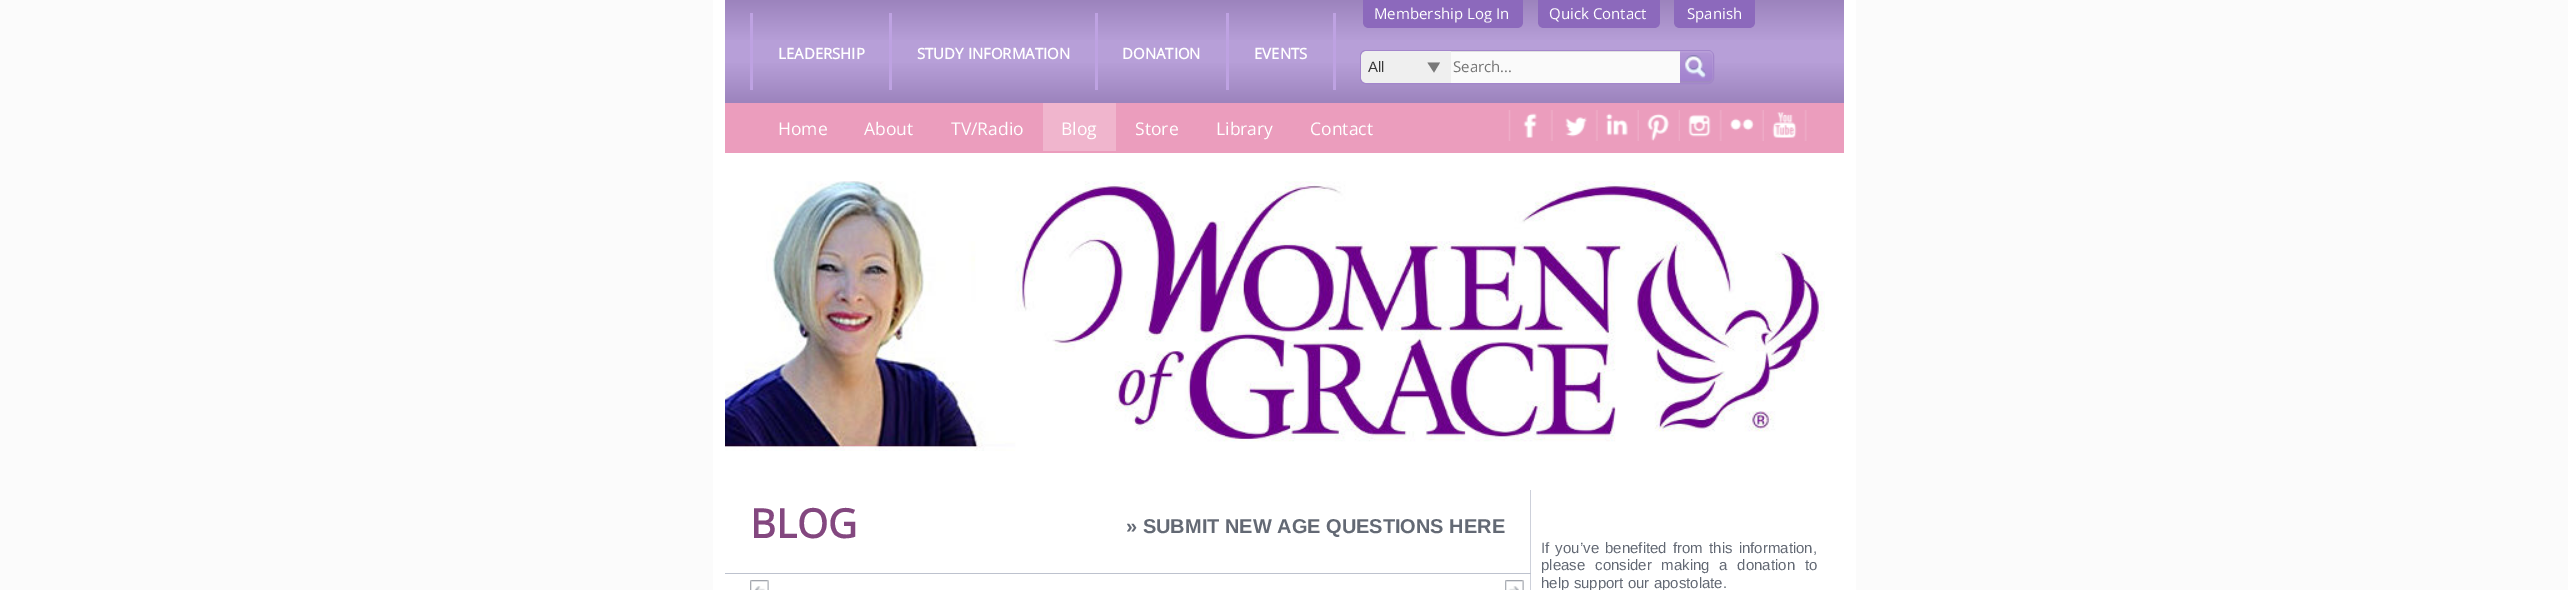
%!PS
<< /PageSize [2568 590] >> setpagedevice
/mt/moveto load def
/li/lineto load def
/ct/curveto load def
/cp/closepath load def
/fl/fill load def
/st/stroke load def
/gs/gsave load def
/gr/grestore load def
/co { dup -16 bitshift 255 div exch dup -8 bitshift 255 and 255 div exch 255 and 255 div setrgbcolor } def
/fn { [ exch dup neg 0 0 3 -1 roll 0 0 ] selectfont } def
/tx { co fn moveto show } def
/bx { co rectfill } def
/rr { 5 dict begin { /r /h /w /y /x } { exch def } forall
  x r add y moveto x w add y 2 copy h add r arct x w add y h add x 1 index r arct
  x y h add x y r arct x y 2 copy exch w add exch r arct closepath end } def
/im { 5 dict begin { /h /w /y /x /name } { exch def } forall
  gsave x y translate w h scale
  w h 8 [w 0 0 h 0 0] name (r) file false 3 colorimage grestore end } def
0 590 translate 1 -1 scale
4 setmiterlimit
0 0 2568 590 16#FBFBFB bx
713 0 1143 590 16#FFFFFF bx
gs 725 0 mt 1844 0 li 1844 103 li 725 103 li cp clip newpath
<< /ShadingType 2 /ColorSpace /DeviceRGB /Coords [1284 0 1284 103] /Extend [true true] /Function << /FunctionType 3 /Domain [0 1] /Functions [<< /FunctionType 2 /Domain [0 1] /C0 [.612 .514 .741] /C1 [.718 .624 .847] /N 1 >> << /FunctionType 2 /Domain [0 1] /C0 [.718 .624 .847] /C1 [.718 .624 .847] /N 1 >> << /FunctionType 2 /Domain [0 1] /C0 [.718 .624 .847] /C1 [.612 .514 .741] /N 1 >>] /Bounds [.4 .6] /Encode [0 1 0 1 0 1] >> >> shfill gr
750 13 3 77 16#BEA2E2 bx
889 13 3 77 16#BEA2E2 bx
1095 13 3 77 16#BEA2E2 bx
1333 13 3 77 16#BEA2E2 bx
1226 13 3 77 16#BEA2E2 bx
16#8C69BC co
1363 0 mt 1523 0 li 1523 22 li 1523 25.5 1520.5 28 1517 28 ct 1369 28 li 1365.5 28 1363 25.5 1363 22 ct cp fl
1538 0 mt 1660 0 li 1660 22 li 1660 25.5 1657.5 28 1654 28 ct 1544 28 li 1540.5 28 1538 25.5 1538 22 ct cp fl
1674 0 mt 1755 0 li 1755 22 li 1755 25.5 1752.5 28 1749 28 ct 1680 28 li 1676.5 28 1674 25.5 1674 22 ct cp fl
16#A386CB co
1360.5 50.5 353 33 5.5 rr st
1446 51 234 1 16#E1E1E1 bx
16#EFEFEF co
1367 51 mt 1451 51 li 1451 83 li 1367 83 li 1363.5 83 1361 80.5 1361 77 ct 1361 57 li 1361 53.5 1363.5 51 1367 51 ct cp fl
16#787878 co
1427.5 62.5 mt 1440 62.5 li 1434 72.5 li cp fl
1451 52 229 31 16#FAFAFA bx
(media/1.raw) 1680 51 33 32 im
725 103 1119 50 16#EB9DBD bx
1043 103 73 48 16#F0B5CD bx
(media/2.raw) 1508 110 45 31 im
(media/3.raw) 1565 110 33 31 im
(media/4.raw) 1606 110 33 31 im
(media/5.raw) 1647 110 33 31 im
(media/6.raw) 1688 110 34 31 im
(media/7.raw) 1730 110 34 31 im
(media/8.raw) 1772 110 35 31 im
(media/9.raw) 725 181 1100 270 im
1530 490 1 100 16#CDD0DA bx
725 573 806 1 16#BDC2CE bx
(media/10.raw) 750 580 19 10 im
(media/11.raw) 1505 580 19 10 im
(LEADERSHIP) 778 59 /OpenSans-Bold 15 16#FFFFFF tx
(STUDY INFORMATION) 917 59 /OpenSans-Bold 15 16#FFFFFF tx
(DONATION) 1122 59 /OpenSans-Bold 15 16#FFFFFF tx
(EVENTS) 1254 59 /OpenSans-Bold 15 16#FFFFFF tx
(Membership Log In) 1374 19 /OpenSans-Regular 15 16#FFFFFF tx
(Quick Contact) 1549 19 /OpenSans-Regular 15 16#FFFFFF tx
(Spanish) 1687 19 /OpenSans-Regular 15 16#FFFFFF tx
(All) 1368 72 /LiberationSans-Regular 15 16#373737 tx
(Search...) 1453 72 /OpenSans-Regular 15 16#757575 tx
(Home) 778 135 /OpenSans-Regular 17.5 16#FFFFFF tx
(About) 864 135 /OpenSans-Regular 17.5 16#FFFFFF tx
(TV/Radio) 951 135 /OpenSans-Regular 17.5 16#FFFFFF tx
(Blog) 1061 135 /OpenSans-Regular 17.5 16#FFFFFF tx
(Store) 1135 135 /OpenSans-Regular 17.5 16#FFFFFF tx
(Library) 1216 135 /OpenSans-Regular 17.5 16#FFFFFF tx
(Contact) 1310 135 /OpenSans-Regular 17.5 16#FFFFFF tx
(BLOG) 750 538 /OpenSans-Bold 40 16#83477F tx
(» SUBMIT NEW AGE QUESTIONS HERE) 1126 533 /LiberationSans-Bold 20 16#636974 tx
/LiberationSans-Regular 15 fn
1541 553 mt 2 0 32 (If you’ve benefited from this information,) widthshow
(please) 1541 570 /LiberationSans-Regular 15 16#636974 tx
1595 570 mt 5.5 0 32 (consider making a donation to) widthshow
(help support our apostolate.) 1541 588 /LiberationSans-Regular 15 16#636974 tx
showpage
